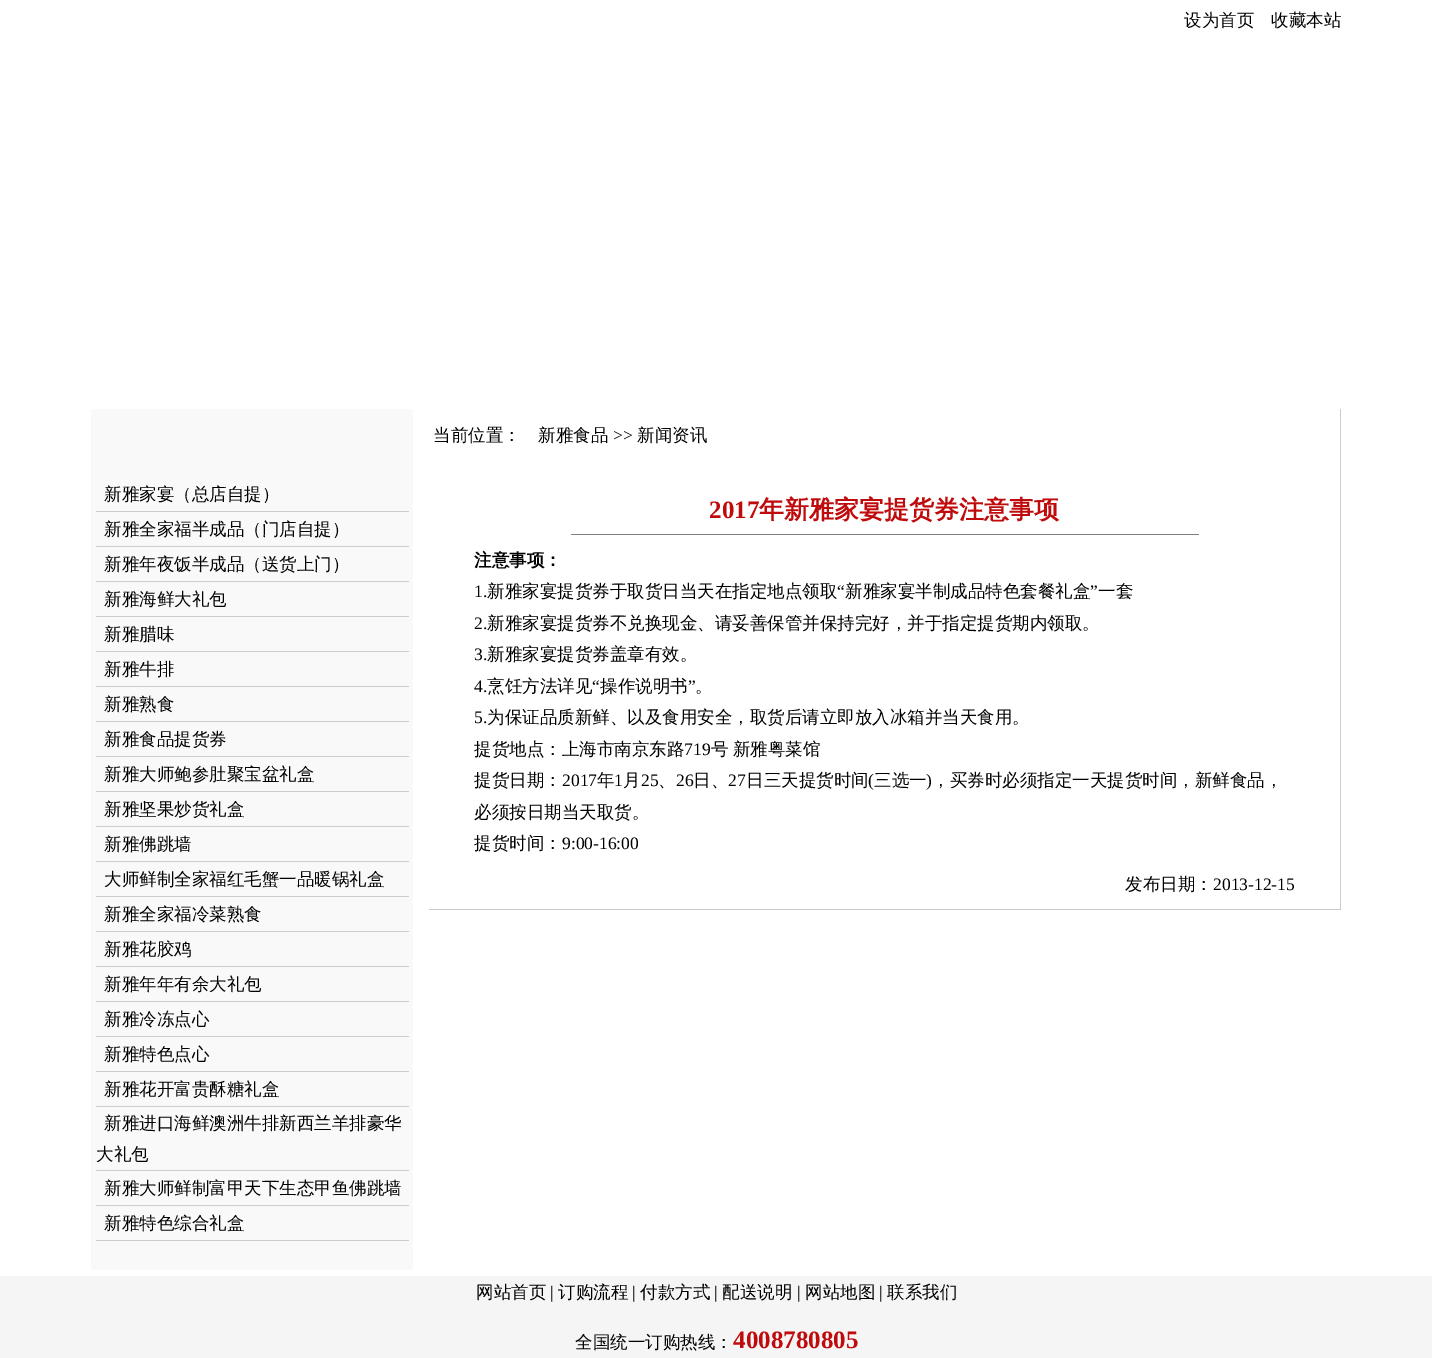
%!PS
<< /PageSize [1432 1358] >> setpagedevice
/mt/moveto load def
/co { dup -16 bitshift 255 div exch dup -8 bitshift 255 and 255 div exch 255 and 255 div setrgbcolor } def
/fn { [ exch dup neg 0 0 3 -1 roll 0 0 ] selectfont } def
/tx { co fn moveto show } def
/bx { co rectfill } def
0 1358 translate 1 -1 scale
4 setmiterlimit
0 0 1432 1358 16#FFFFFF bx
91 409 322 861 16#F9F9F9 bx
96 511 313 1 16#CCCCCC bx
96 546 313 1 16#CCCCCC bx
96 581 313 1 16#CCCCCC bx
96 616 313 1 16#CCCCCC bx
96 651 313 1 16#CCCCCC bx
96 686 313 1 16#CCCCCC bx
96 721 313 1 16#CCCCCC bx
96 756 313 1 16#CCCCCC bx
96 791 313 1 16#CCCCCC bx
96 826 313 1 16#CCCCCC bx
96 861 313 1 16#CCCCCC bx
96 896 313 1 16#CCCCCC bx
96 931 313 1 16#CCCCCC bx
96 966 313 1 16#CCCCCC bx
96 1001 313 1 16#CCCCCC bx
96 1036 313 1 16#CCCCCC bx
96 1071 313 1 16#CCCCCC bx
96 1106 313 1 16#CCCCCC bx
96 1170 313 1 16#CCCCCC bx
96 1205 313 1 16#CCCCCC bx
96 1240 313 1 16#CCCCCC bx
1340 409 1 501 16#CCCCCC bx
429 909 912 1 16#CCCCCC bx
571 534 628 1 16#808080 bx
0 1276 1432 82 16#F5F5F5 bx
(设为首页) 1184 26 /WenQuanYiZenHei-Medium 17.5 16#000000 tx
(收藏本站) 1271 26 /WenQuanYiZenHei-Medium 17.5 16#000000 tx
(新雅家宴（总店自提）) 104 500 /WenQuanYiZenHei-Medium 17.5 16#000000 tx
(新雅全家福半成品（门店自提）) 104 535 /WenQuanYiZenHei-Medium 17.5 16#000000 tx
(新雅年夜饭半成品（送货上门）) 104 570 /WenQuanYiZenHei-Medium 17.5 16#000000 tx
(新雅海鲜大礼包) 104 605 /WenQuanYiZenHei-Medium 17.5 16#000000 tx
(新雅腊味) 104 640 /WenQuanYiZenHei-Medium 17.5 16#000000 tx
(新雅牛排) 104 675 /WenQuanYiZenHei-Medium 17.5 16#000000 tx
(新雅熟食) 104 710 /WenQuanYiZenHei-Medium 17.5 16#000000 tx
(新雅食品提货券) 104 745 /WenQuanYiZenHei-Medium 17.5 16#000000 tx
(新雅大师鲍参肚聚宝盆礼盒) 104 780 /WenQuanYiZenHei-Medium 17.5 16#000000 tx
(新雅坚果炒货礼盒) 104 815 /WenQuanYiZenHei-Medium 17.5 16#000000 tx
(新雅佛跳墙) 104 850 /WenQuanYiZenHei-Medium 17.5 16#000000 tx
(大师鲜制全家福红毛蟹一品暖锅礼盒) 104 885 /WenQuanYiZenHei-Medium 17.5 16#000000 tx
(新雅全家福冷菜熟食) 104 920 /WenQuanYiZenHei-Medium 17.5 16#000000 tx
(新雅花胶鸡) 104 955 /WenQuanYiZenHei-Medium 17.5 16#000000 tx
(新雅年年有余大礼包) 104 990 /WenQuanYiZenHei-Medium 17.5 16#000000 tx
(新雅冷冻点心) 104 1025 /WenQuanYiZenHei-Medium 17.5 16#000000 tx
(新雅特色点心) 104 1060 /WenQuanYiZenHei-Medium 17.5 16#000000 tx
(新雅花开富贵酥糖礼盒) 104 1095 /WenQuanYiZenHei-Medium 17.5 16#000000 tx
(新雅进口海鲜澳洲牛排新西兰羊排豪华) 104 1129 /WenQuanYiZenHei-Medium 17.5 16#000000 tx
(大礼包) 96 1160 /WenQuanYiZenHei-Medium 17.5 16#000000 tx
(新雅大师鲜制富甲天下生态甲鱼佛跳墙) 104 1194 /WenQuanYiZenHei-Medium 17.5 16#000000 tx
(新雅特色综合礼盒) 104 1229 /WenQuanYiZenHei-Medium 17.5 16#000000 tx
(当前位置：) 433 441 /WenQuanYiZenHei-Medium 17.5 16#000000 tx
(新雅食品) 538 441 /WenQuanYiZenHei-Medium 17.5 16#000000 tx
(>>) 613 441 /LiberationSerif-Regular 17.5 16#000000 tx
(新闻资讯) 637 441 /WenQuanYiZenHei-Medium 17.5 16#000000 tx
(2017) 709 518 /LiberationSerif-Bold 25 16#BF0B0C tx
(年新雅家宴提货券注意事项) 759 518 /WenQuanYiZenHei-Bold 25 16#BF0B0C tx
(注意事项：) 474 566 /WenQuanYiZenHei-Bold 17.5 16#000000 tx
(1.) 474 597 /LiberationSerif-Regular 17.5 16#000000 tx
(新雅家宴提货券于取货日当天在指定地点领取) 487 597 /WenQuanYiZenHei-Medium 17.5 16#000000 tx
(“) 837 597 /LiberationSerif-Regular 17.5 16#000000 tx
(新雅家宴半制成品特色套餐礼盒) 845 597 /WenQuanYiZenHei-Medium 17.5 16#000000 tx
(”) 1090 597 /LiberationSerif-Regular 17.5 16#000000 tx
(一套) 1098 597 /WenQuanYiZenHei-Medium 17.5 16#000000 tx
(2.) 474 629 /LiberationSerif-Regular 17.5 16#000000 tx
(新雅家宴提货券不兑换现金、请妥善保管并保持完好，并于指定提货期内领取。) 487 629 /WenQuanYiZenHei-Medium 17.5 16#000000 tx
(3.) 474 660 /LiberationSerif-Regular 17.5 16#000000 tx
(新雅家宴提货券盖章有效。) 487 660 /WenQuanYiZenHei-Medium 17.5 16#000000 tx
(4.) 474 692 /LiberationSerif-Regular 17.5 16#000000 tx
(烹饪方法详见) 487 692 /WenQuanYiZenHei-Medium 17.5 16#000000 tx
(“) 592 692 /LiberationSerif-Regular 17.5 16#000000 tx
(操作说明书) 600 692 /WenQuanYiZenHei-Medium 17.5 16#000000 tx
(”) 688 692 /LiberationSerif-Regular 17.5 16#000000 tx
(。) 695 692 /WenQuanYiZenHei-Medium 17.5 16#000000 tx
(5.) 474 723 /LiberationSerif-Regular 17.5 16#000000 tx
(为保证品质新鲜、以及食用安全，取货后请立即放入冰箱并当天食用。) 487 723 /WenQuanYiZenHei-Medium 17.5 16#000000 tx
(提货地点：上海市南京东路) 474 755 /WenQuanYiZenHei-Medium 17.5 16#000000 tx
(719) 684 755 /LiberationSerif-Regular 17.5 16#000000 tx
/WenQuanYiZenHei-Medium 17.5 fn
711 755 mt -1 0 32 (号 新雅粤菜馆) widthshow
(提货日期：) 474 786 /WenQuanYiZenHei-Medium 17.5 16#000000 tx
(2017) 562 786 /LiberationSerif-Regular 17.5 16#000000 tx
(年) 597 786 /WenQuanYiZenHei-Medium 17.5 16#000000 tx
(1) 614 786 /LiberationSerif-Regular 17.5 16#000000 tx
(月) 623 786 /WenQuanYiZenHei-Medium 17.5 16#000000 tx
(25) 641 786 /LiberationSerif-Regular 17.5 16#000000 tx
(26) 676 786 /LiberationSerif-Regular 17.5 16#000000 tx
(日、) 693 786 /WenQuanYiZenHei-Medium 17.5 16#000000 tx
(27) 728 786 /LiberationSerif-Regular 17.5 16#000000 tx
(日三天提货时间) 746 786 /WenQuanYiZenHei-Medium 17.5 16#000000 tx
(\() 868 786 /LiberationSerif-Regular 17.5 16#000000 tx
(三选一) 874 786 /WenQuanYiZenHei-Medium 17.5 16#000000 tx
(\)) 926 786 /LiberationSerif-Regular 17.5 16#000000 tx
(，买券时必须指定一天提货时间，新鲜食品，) 932 786 /WenQuanYiZenHei-Medium 17.5 16#000000 tx
(、) 658 786 /WenQuanYiZenHei-Medium 17.5 16#000000 tx
(必须按日期当天取货。) 474 818 /WenQuanYiZenHei-Medium 17.5 16#000000 tx
(提货时间：) 474 849 /WenQuanYiZenHei-Medium 17.5 16#000000 tx
(9:00-16:00) 562 849 /LiberationSerif-Regular 17.5 16#000000 tx
(发布日期：) 1125 890 /WenQuanYiZenHei-Medium 17.5 16#000000 tx
(2013-12-15) 1213 890 /LiberationSerif-Regular 17.5 16#000000 tx
(网站首页) 476 1298 /WenQuanYiZenHei-Medium 17.5 16#000000 tx
(|) 550 1298 /LiberationSerif-Regular 17.5 16#000000 tx
(订购流程) 558 1298 /WenQuanYiZenHei-Medium 17.5 16#000000 tx
(|) 632 1298 /LiberationSerif-Regular 17.5 16#000000 tx
(付款方式) 640 1298 /WenQuanYiZenHei-Medium 17.5 16#000000 tx
(|) 714 1298 /LiberationSerif-Regular 17.5 16#000000 tx
(配送说明) 722 1298 /WenQuanYiZenHei-Medium 17.5 16#000000 tx
(|) 797 1298 /LiberationSerif-Regular 17.5 16#000000 tx
(网站地图) 805 1298 /WenQuanYiZenHei-Medium 17.5 16#000000 tx
(|) 879 1298 /LiberationSerif-Regular 17.5 16#000000 tx
(联系我们) 887 1298 /WenQuanYiZenHei-Medium 17.5 16#000000 tx
(全国统一订购热线：) 575 1348 /WenQuanYiZenHei-Medium 17.5 16#000000 tx
(4008780805) 733 1348 /LiberationSerif-Bold 25 16#BF0B0C tx
showpage
